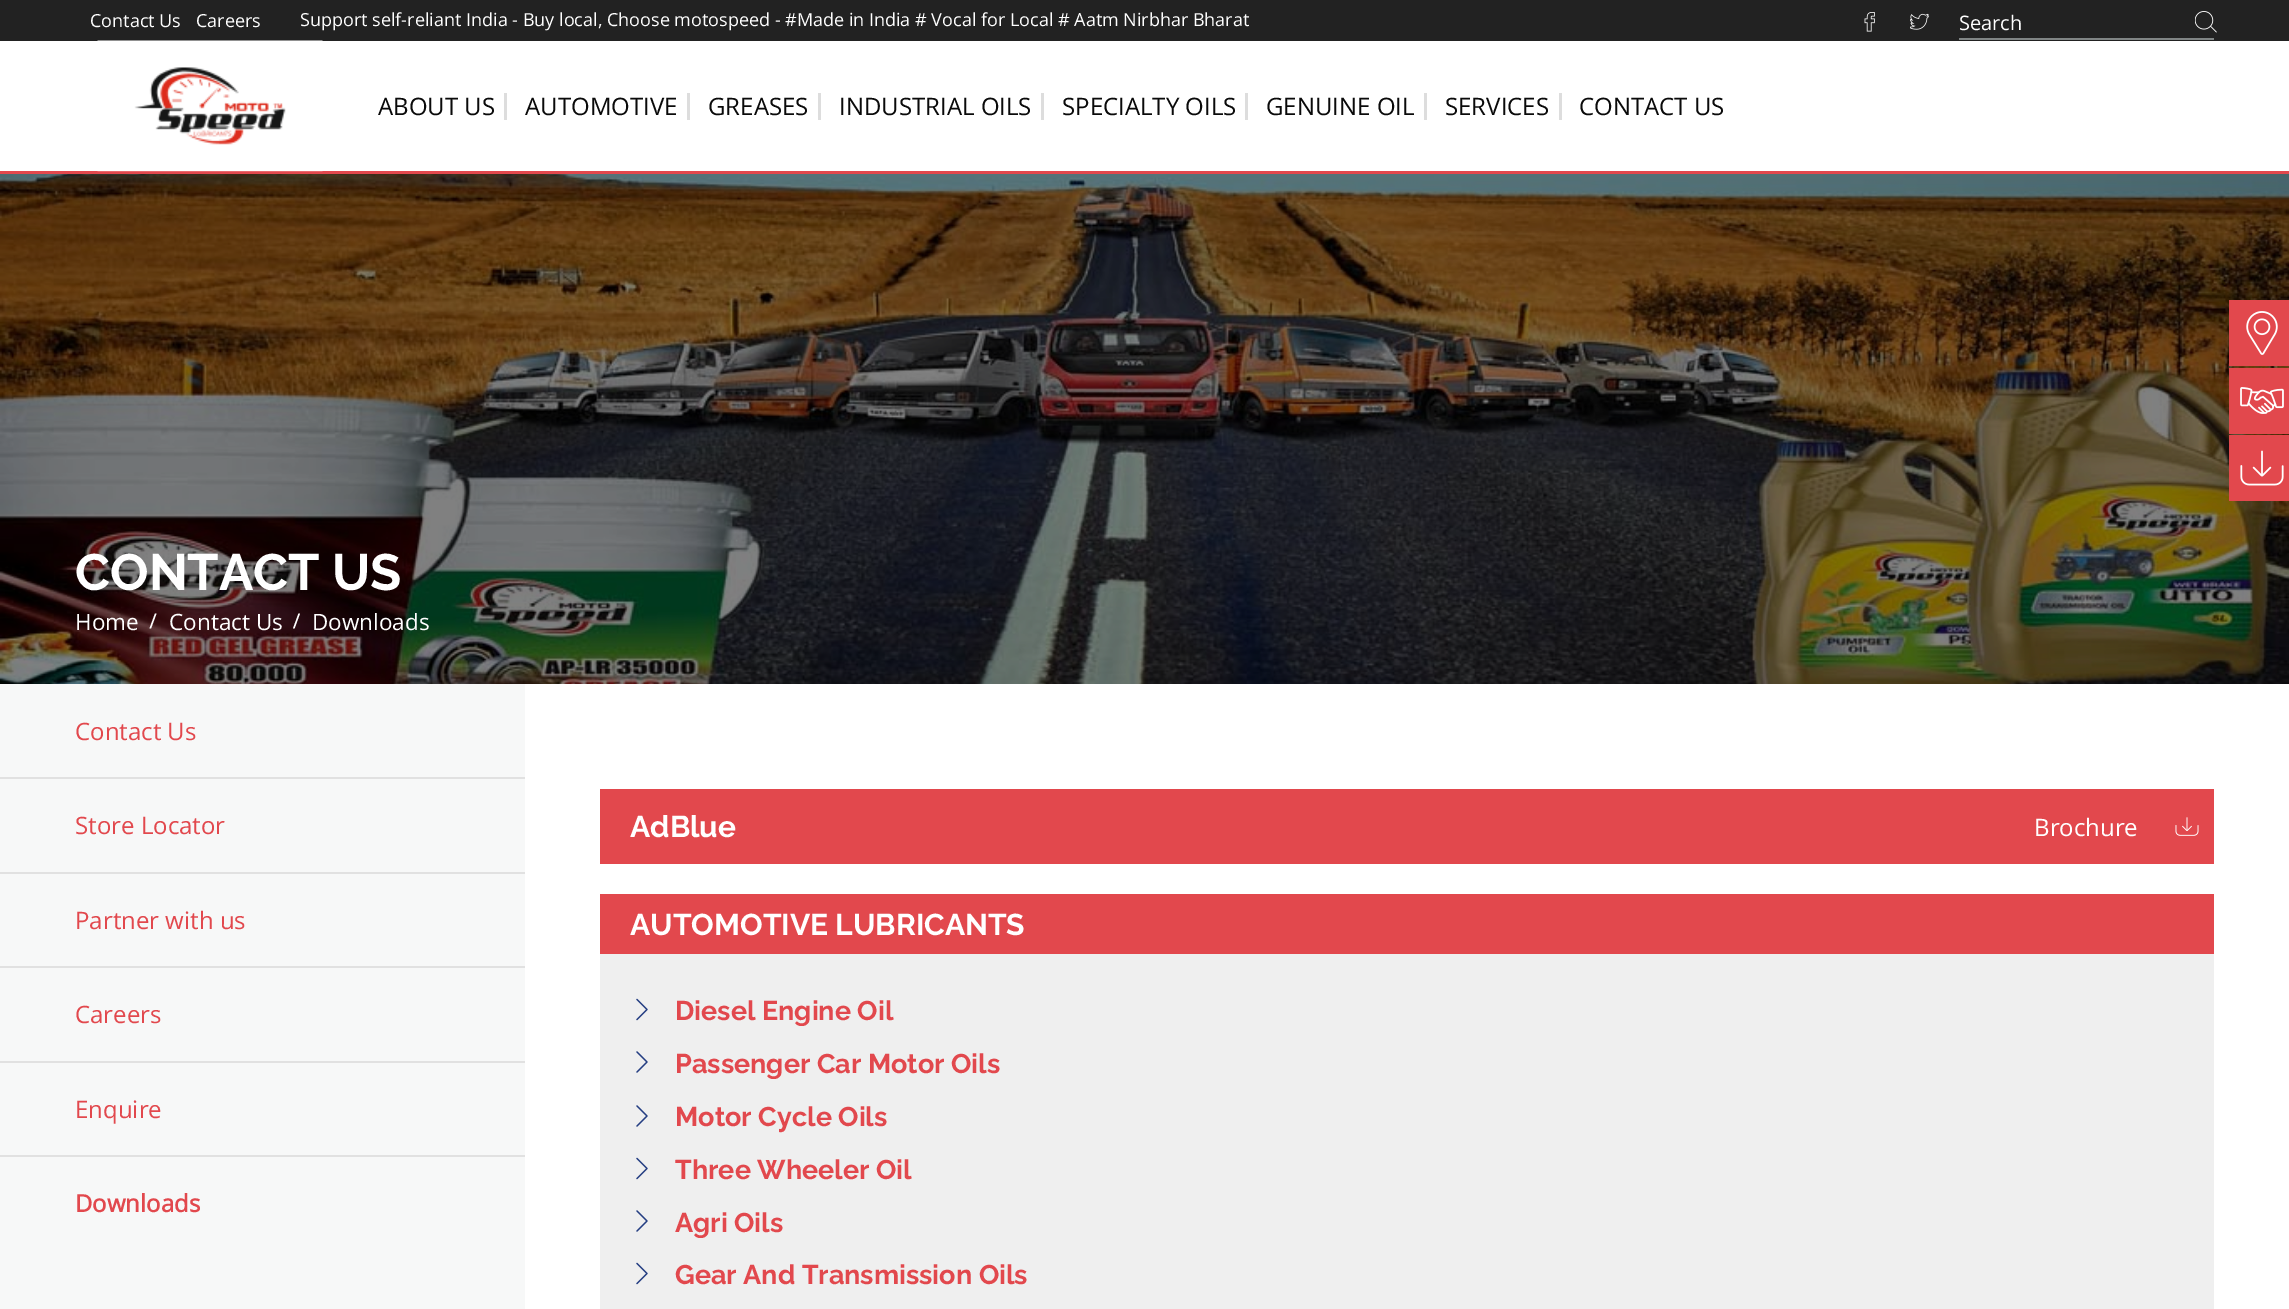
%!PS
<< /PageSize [2289 1309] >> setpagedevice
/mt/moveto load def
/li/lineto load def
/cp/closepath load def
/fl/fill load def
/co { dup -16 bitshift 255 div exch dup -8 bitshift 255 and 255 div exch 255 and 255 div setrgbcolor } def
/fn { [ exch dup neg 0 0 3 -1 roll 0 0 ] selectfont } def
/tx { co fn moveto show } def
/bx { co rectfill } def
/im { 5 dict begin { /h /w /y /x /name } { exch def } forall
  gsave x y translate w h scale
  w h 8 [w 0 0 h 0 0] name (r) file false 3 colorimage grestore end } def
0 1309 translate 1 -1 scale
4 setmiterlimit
0 0 2289 1309 16#FFFFFF bx
0 0 2289 41 16#222222 bx
(media/1.raw) 1864 12 11 20 im
(media/2.raw) 1910 13 19 17 im
1959 38 255 2 16#808585 bx
(media/3.raw) 2195 11 22 22 im
0 171 2289 3 16#E2484D bx
(media/4.raw) 97 40 226 132 im
504 93 3 27 16#DDDDDD bx
687 93 3 27 16#DDDDDD bx
818 93 3 27 16#DDDDDD bx
1041 93 3 27 16#DDDDDD bx
1245 93 3 27 16#DDDDDD bx
1424 93 3 27 16#DDDDDD bx
1559 93 3 27 16#DDDDDD bx
(media/8.raw) 0 174 2289 510 im
2229 300 60 66 16#E2484D bx
(media/5.raw) 2246 311 32 44 im
2229 368 60 66 16#E2484D bx
(media/6.raw) 2240 387 44 27 im
2229 435 60 66 16#E2484D bx
(media/7.raw) 2240 450 44 36 im
16#FFFFFF co
155 613.5 mt 156.5 613.5 li 151 628.5 li 149.5 628.5 li cp fl
298.5 613.5 mt 300 613.5 li 294.5 628.5 li 293 628.5 li cp fl
0 684 525 625 16#F7F8F8 bx
0 777 525 2 16#E1E1E1 bx
0 872 525 2 16#E1E1E1 bx
0 966 525 2 16#E1E1E1 bx
0 1061 525 2 16#E1E1E1 bx
0 1155 525 2 16#E1E1E1 bx
600 789 1614 75 16#E2484D bx
(media/9.raw) 2175 817 24 19 im
600 894 1614 60 16#E2484D bx
600 954 1614 355 16#EFEFEF bx
(media/10.raw) 636 998 12 23 im
(media/11.raw) 636 1051 12 22 im
(media/11.raw) 636 1105 12 22 im
(media/10.raw) 636 1157 12 23 im
(media/11.raw) 636 1210 12 22 im
(media/10.raw) 636 1262 12 23 im
(Contact Us) 90 27 /OpenSans-Regular 18 16#FFFFFF tx
(Careers) 196 27 /OpenSans-Regular 18 16#FFFFFF tx
(Support self-reliant India - Buy local, Choose motospeed - #Made in India # Vocal for Local # Aatm Nirbhar Bharat) 300 26 /OpenSans-Regular 18 16#FFFFFF tx
(Search) 1959 30 /OpenSans-Regular 20 16#FFFFFF tx
(ABOUT US) 378 115 /OpenSans-Regular 24 16#0A0A0A tx
(AUTOMOTIVE) 525 115 /OpenSans-Regular 24 16#0A0A0A tx
(GREASES) 708 115 /OpenSans-Regular 24 16#0A0A0A tx
(INDUSTRIAL OILS) 839 115 /OpenSans-Regular 24 16#0A0A0A tx
(SPECIALTY OILS) 1062 115 /OpenSans-Regular 24 16#0A0A0A tx
(GENUINE OIL) 1266 115 /OpenSans-Regular 24 16#0A0A0A tx
(SERVICES) 1445 115 /OpenSans-Regular 24 16#0A0A0A tx
(CONTACT US) 1579 115 /OpenSans-Regular 24 16#0A0A0A tx
(CONTACT US) 75 590 /Raleway-Thin 51 16#FFFFFF tx
(Home) 75 630 /OpenSans-Regular 22.5 16#FFFFFF tx
(Contact Us) 169 630 /OpenSans-Regular 22.5 16#FFFFFF tx
(Downloads) 312 630 /OpenSans-Regular 22.5 16#FFFFFF tx
(Contact Us) 75 740 /OpenSans-Regular 24 16#E2484D tx
(Store Locator) 75 834 /OpenSans-Regular 24 16#E2484D tx
(Partner with us) 75 929 /OpenSans-Regular 24 16#E2484D tx
(Careers) 75 1023 /OpenSans-Regular 24 16#E2484D tx
(Enquire) 75 1118 /OpenSans-Regular 24 16#E2484D tx
(Downloads) 75 1212 /OpenSans-Bold 24 16#E2484D tx
(AdBlue) 630 837 /Raleway-Thin 30 16#FFFFFF tx
(Brochure) 2034 836 /OpenSans-Regular 24 16#FFFFFF tx
(AUTOMOTIVE LUBRICANTS) 630 935 /Raleway-Thin 30 16#FFFFFF tx
(Diesel Engine Oil) 675 1020 /Raleway-Thin 27 16#E2484D tx
(Passenger Car Motor Oils) 675 1073 /Raleway-Thin 27 16#E2484D tx
(Motor Cycle Oils) 675 1126 /Raleway-Thin 27 16#E2484D tx
(Three Wheeler Oil) 675 1179 /Raleway-Thin 27 16#E2484D tx
(Agri Oils) 675 1232 /Raleway-Thin 27 16#E2484D tx
(Gear And Transmission Oils) 675 1284 /Raleway-Thin 27 16#E2484D tx
showpage
